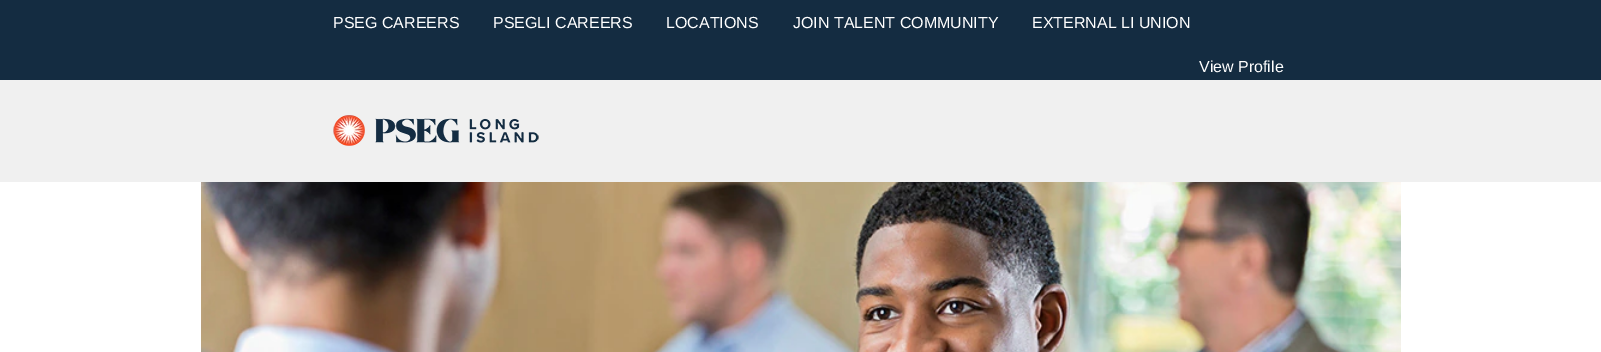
%!PS
<< /PageSize [1601 352] >> setpagedevice
/co { dup -16 bitshift 255 div exch dup -8 bitshift 255 and 255 div exch 255 and 255 div setrgbcolor } def
/fn { [ exch dup neg 0 0 3 -1 roll 0 0 ] selectfont } def
/tx { co fn moveto show } def
/bx { co rectfill } def
/im { 5 dict begin { /h /w /y /x /name } { exch def } forall
  gsave x y translate w h scale
  w h 8 [w 0 0 h 0 0] name (r) file false 3 colorimage grestore end } def
0 352 translate 1 -1 scale
4 setmiterlimit
0 0 1601 352 16#FFFFFF bx
0 80 1601 102 16#F0F0F0 bx
0 0 1601 80 16#142C41 bx
(media/1.raw) 333 115 206 31 im
(media/2.raw) 201 182 1200 170 im
(PSEG CAREERS) 333 28 /LiberationSans-Regular 16 16#FFFFFF tx
(PSEGLI CAREERS) 493 28 /LiberationSans-Regular 16 16#FFFFFF tx
(LOCATIONS) 666 28 /LiberationSans-Regular 16 16#FFFFFF tx
(JOIN TALENT COMMUNITY) 793 28 /LiberationSans-Regular 16 16#FFFFFF tx
(EXTERNAL LI UNION) 1032 28 /LiberationSans-Regular 16 16#FFFFFF tx
(View Profile) 1199 72 /LiberationSans-Regular 16 16#FFFFFF tx
showpage
